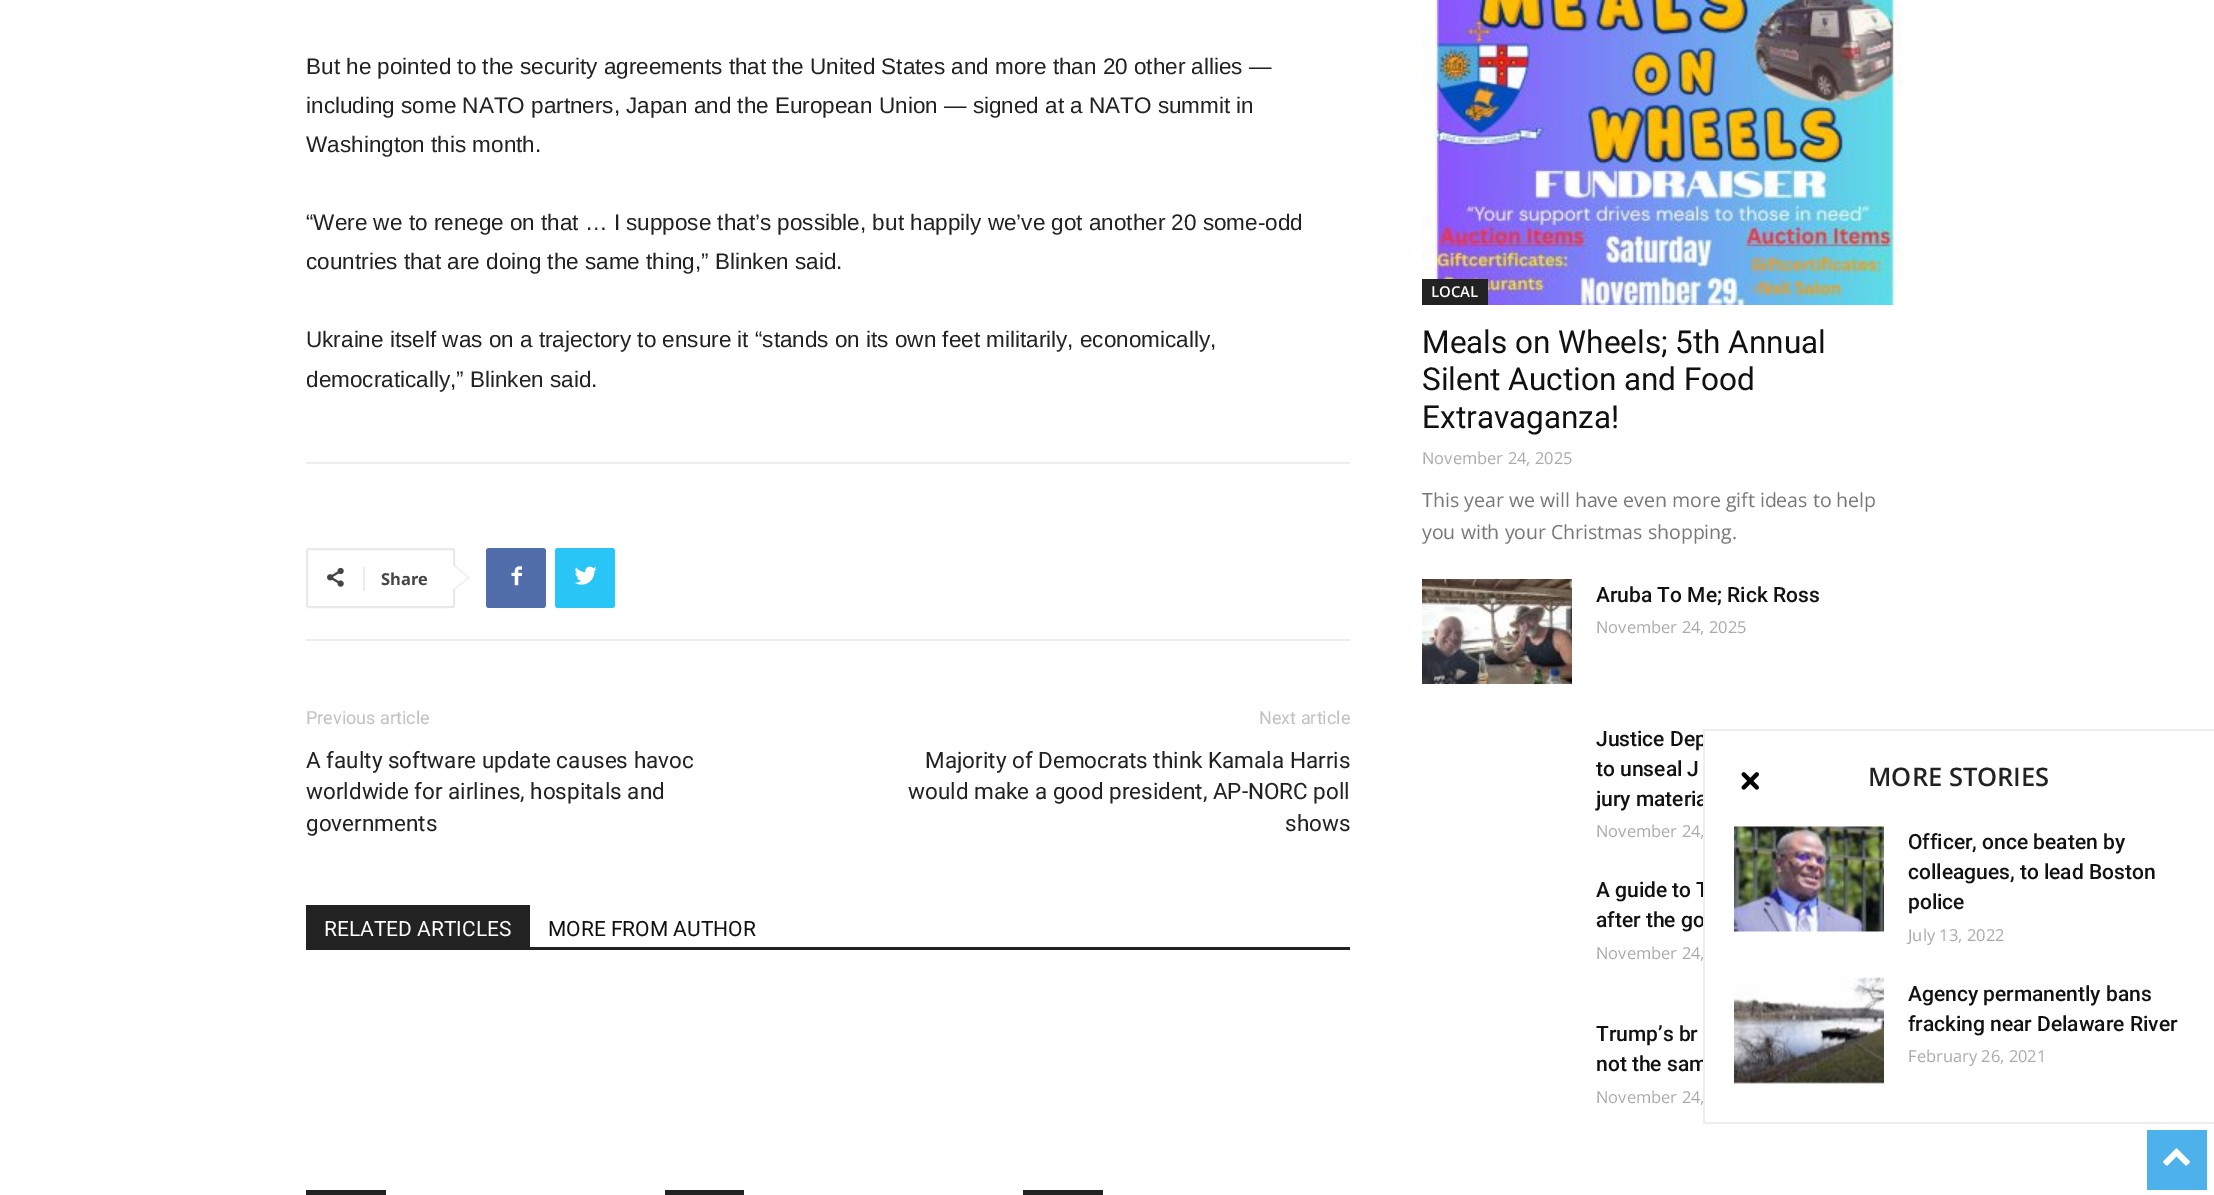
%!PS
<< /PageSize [2214 1195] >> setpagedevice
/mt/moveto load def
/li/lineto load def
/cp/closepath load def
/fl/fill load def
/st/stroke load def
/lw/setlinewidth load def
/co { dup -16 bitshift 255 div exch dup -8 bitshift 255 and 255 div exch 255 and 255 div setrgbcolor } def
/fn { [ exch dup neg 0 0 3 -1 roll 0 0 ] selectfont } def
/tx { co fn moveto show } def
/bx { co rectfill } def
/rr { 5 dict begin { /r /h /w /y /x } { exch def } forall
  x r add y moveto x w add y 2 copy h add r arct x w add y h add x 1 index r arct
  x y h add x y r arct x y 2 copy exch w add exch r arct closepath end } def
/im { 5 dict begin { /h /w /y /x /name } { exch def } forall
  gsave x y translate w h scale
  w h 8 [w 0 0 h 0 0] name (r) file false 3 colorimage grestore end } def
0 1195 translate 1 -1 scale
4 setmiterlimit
0 0 2214 1195 16#FFFFFF bx
306 462 1044 2 16#EDEDED bx
306 639 1044 2 16#EDEDED bx
16#E9E9E9 co
2 lw
307 549 147 58 2 rr st
453 591 mt 453 564 li 469.5 577.5 li cp fl
(media/1.raw) 327 567 17 20 im
363 567 2 24 16#EBEBEB bx
16#FFFFFF co
453 589.5 mt 453 565.5 li 468 577.5 li cp fl
16#516EAB co
486 548 60 60 3 rr fl
(media/2.raw) 511 566 11 20 im
16#29C5F6 co
555 548 60 60 3 rr fl
(media/3.raw) 574 566 23 19 im
306 947 1044 3 16#222222 bx
306 905 224 42 16#222222 bx
306 1190 80 5 16#222222 bx
665 1190 79 5 16#222222 bx
1023 1190 80 5 16#222222 bx
(media/4.raw) 1422 0 481 305 im
1422 279 66 26 16#222222 bx
(media/5.raw) 1422 579 150 105 im
1703 1122 511 2 16#EDEDED bx
(media/6.raw) 1741 772 18 18 im
(media/7.raw) 1734 826 150 106 im
(media/8.raw) 1734 977 150 107 im
2147 1130 60 60 16#4DB2EC bx
(media/9.raw) 2163 1148 27 18 im
(But he pointed to the security agreements that the United States and more than 20 other allies —) 306 74 /LiberationSans-Regular 22.5 16#222222 tx
(including some NATO partners, Japan and the European Union — signed at a NATO summit in) 306 113 /LiberationSans-Regular 22.5 16#222222 tx
(Washington this month.) 306 152 /LiberationSans-Regular 22.5 16#222222 tx
(“Were we to renege on that … I suppose that’s possible, but happily we’ve got another 20 some-odd) 306 230 /LiberationSans-Regular 22.5 16#222222 tx
(countries that are doing the same thing,” Blinken said.) 306 269 /LiberationSans-Regular 22.5 16#222222 tx
(Ukraine itself was on a trajectory to ensure it “stands on its own feet militarily, economically,) 306 347 /LiberationSans-Regular 22.5 16#222222 tx
(democratically,” Blinken said.) 306 387 /LiberationSans-Regular 22.5 16#222222 tx
(Share) 381 585 /OpenSans-Bold 16.5 16#444444 tx
(Previous article) 306 724 /Roboto-Regular 18 16#C1C1C1 tx
(A faulty software update causes havoc) 306 768 /Roboto-Regular 22.5 16#222222 tx
(worldwide for airlines, hospitals and) 306 799 /Roboto-Regular 22.5 16#222222 tx
(governments) 306 831 /Roboto-Regular 22.5 16#222222 tx
(Next article) 1259 724 /Roboto-Regular 18 16#C1C1C1 tx
(Majority of Democrats think Kamala Harris) 925 768 /Roboto-Regular 22.5 16#222222 tx
(would make a good president, AP-NORC poll) 908 799 /Roboto-Regular 22.5 16#222222 tx
(shows) 1285 831 /Roboto-Regular 22.5 16#222222 tx
(RELATED ARTICLES) 324 936 /Roboto-Regular 21 16#FFFFFF tx
(MORE FROM AUTHOR) 548 936 /Roboto-Regular 21 16#111111 tx
(LOCAL) 1431 297 /OpenSans-SemiBold 15 16#FFFFFF tx
(Meals on Wheels; 5th Annual) 1422 353 /Roboto-Regular 31.5 16#111111 tx
(Silent Auction and Food) 1422 390 /Roboto-Regular 31.5 16#111111 tx
(Extravaganza!) 1422 428 /Roboto-Regular 31.5 16#111111 tx
(November 24, 2025) 1422 464 /OpenSans-Regular 16.5 16#AAAAAA tx
(This year we will have even more gift ideas to help) 1422 507 /OpenSans-Regular 19.5 16#777777 tx
(you with your Christmas shopping.) 1422 539 /OpenSans-Regular 19.5 16#777777 tx
(Aruba To Me; Rick Ross) 1596 602 /Roboto-Medium 21 16#111111 tx
(November 24, 2025) 1596 633 /OpenSans-Regular 16.5 16#AAAAAA tx
(Justice Dep) 1596 746 /Roboto-Medium 21 16#111111 tx
(to unseal J) 1596 776 /Roboto-Medium 21 16#111111 tx
(jury materia) 1596 806 /Roboto-Medium 21 16#111111 tx
(November 24,) 1596 837 /OpenSans-Regular 16.5 16#AAAAAA tx
(A guide to T) 1596 897 /Roboto-Medium 21 16#111111 tx
(after the go) 1596 927 /Roboto-Medium 21 16#111111 tx
(November 24,) 1596 959 /OpenSans-Regular 16.5 16#AAAAAA tx
(Trump’s br) 1596 1041 /Roboto-Medium 21 16#111111 tx
(not the sam) 1596 1071 /Roboto-Medium 21 16#111111 tx
(November 24,) 1596 1103 /OpenSans-Regular 16.5 16#AAAAAA tx
1705 736 4 335 16#FFFFFF bx
1703 729 511 2 16#EDEDED bx
1703 729 2 395 16#EDEDED bx
(MORE STORIES) 1868 786 /OpenSans-SemiBold 25.5 16#222222 tx
(Officer, once beaten by) 1908 849 /Roboto-Medium 21 16#111111 tx
(colleagues, to lead Boston) 1908 879 /Roboto-Medium 21 16#111111 tx
(police) 1908 909 /Roboto-Medium 21 16#111111 tx
(July 13, 2022) 1908 941 /OpenSans-Regular 16.5 16#AAAAAA tx
(Agency permanently bans) 1908 1001 /Roboto-Medium 21 16#111111 tx
(fracking near Delaware River) 1908 1031 /Roboto-Medium 21 16#111111 tx
(February 26, 2021) 1908 1062 /OpenSans-Regular 16.5 16#AAAAAA tx
showpage
